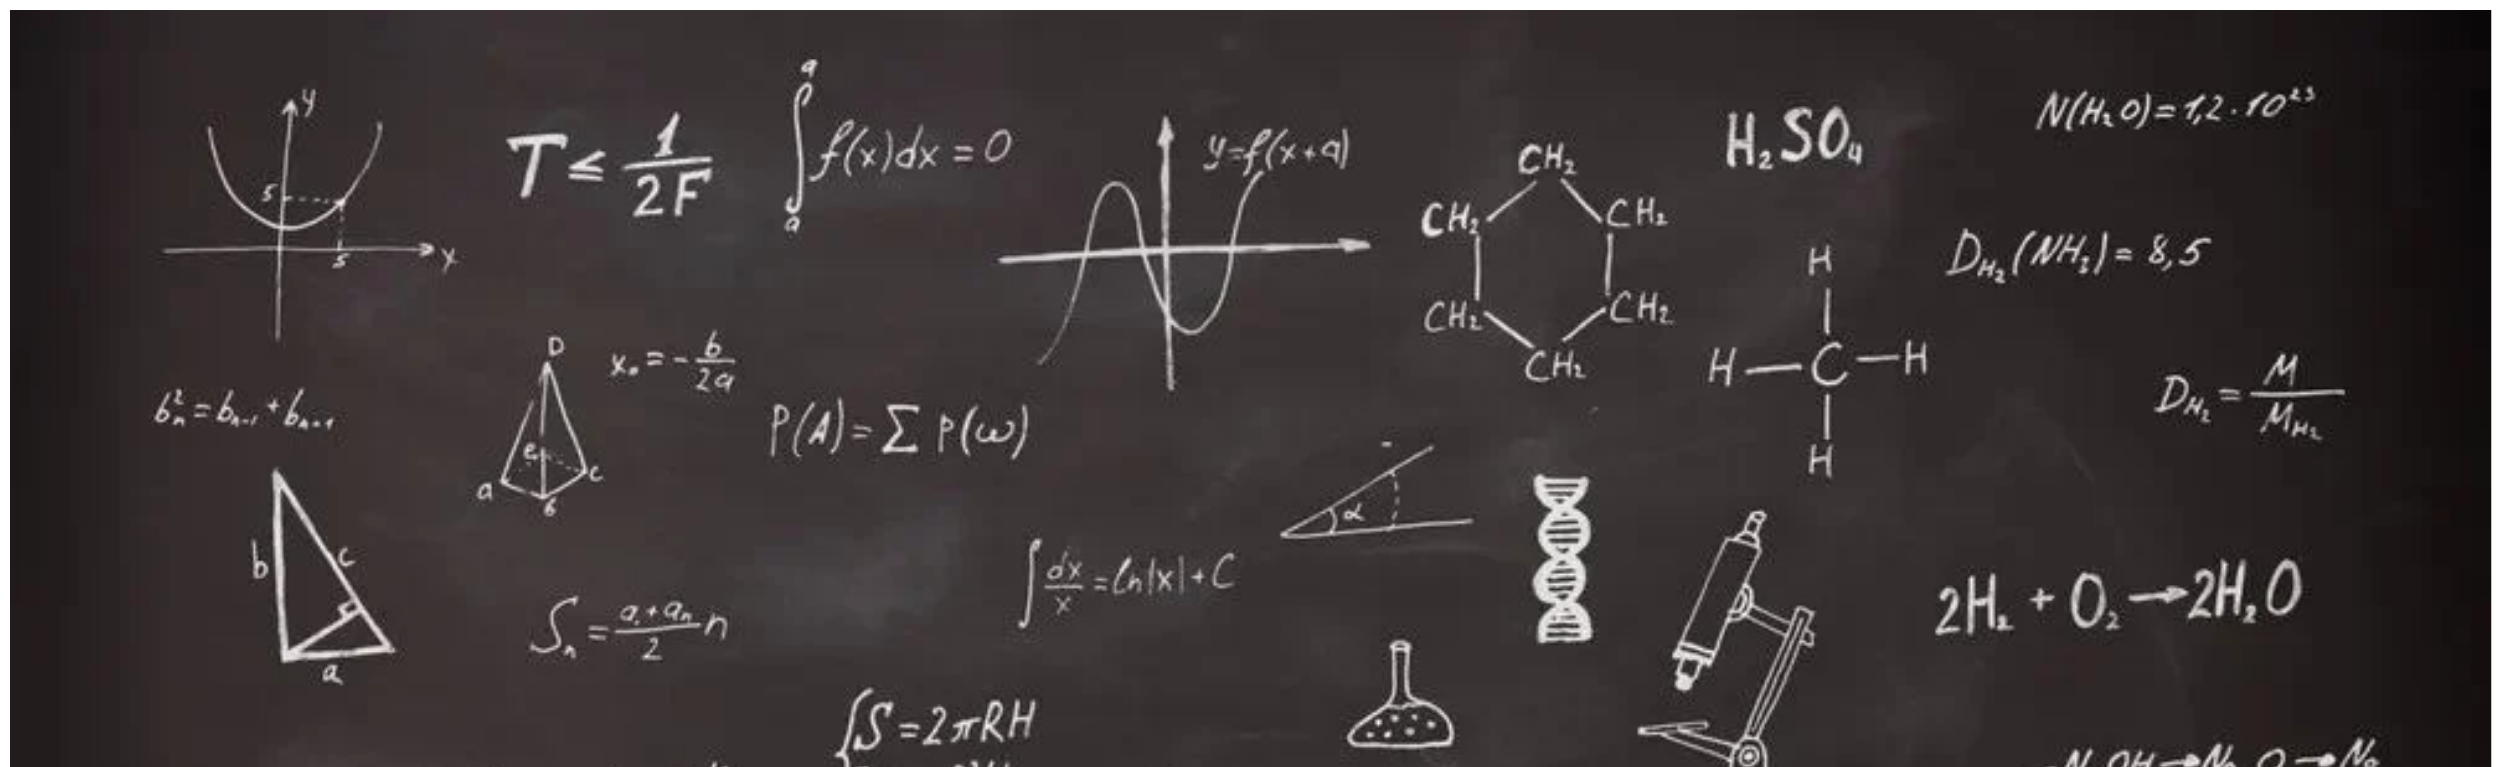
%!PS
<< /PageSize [2501 767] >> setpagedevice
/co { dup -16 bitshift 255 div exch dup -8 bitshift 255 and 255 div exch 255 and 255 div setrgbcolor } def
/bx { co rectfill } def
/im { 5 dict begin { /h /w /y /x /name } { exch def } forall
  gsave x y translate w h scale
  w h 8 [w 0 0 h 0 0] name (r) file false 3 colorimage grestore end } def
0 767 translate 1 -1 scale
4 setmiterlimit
0 0 2501 767 16#FFFFFF bx
(media/1.raw) 10 10 2482 757 im
showpage
